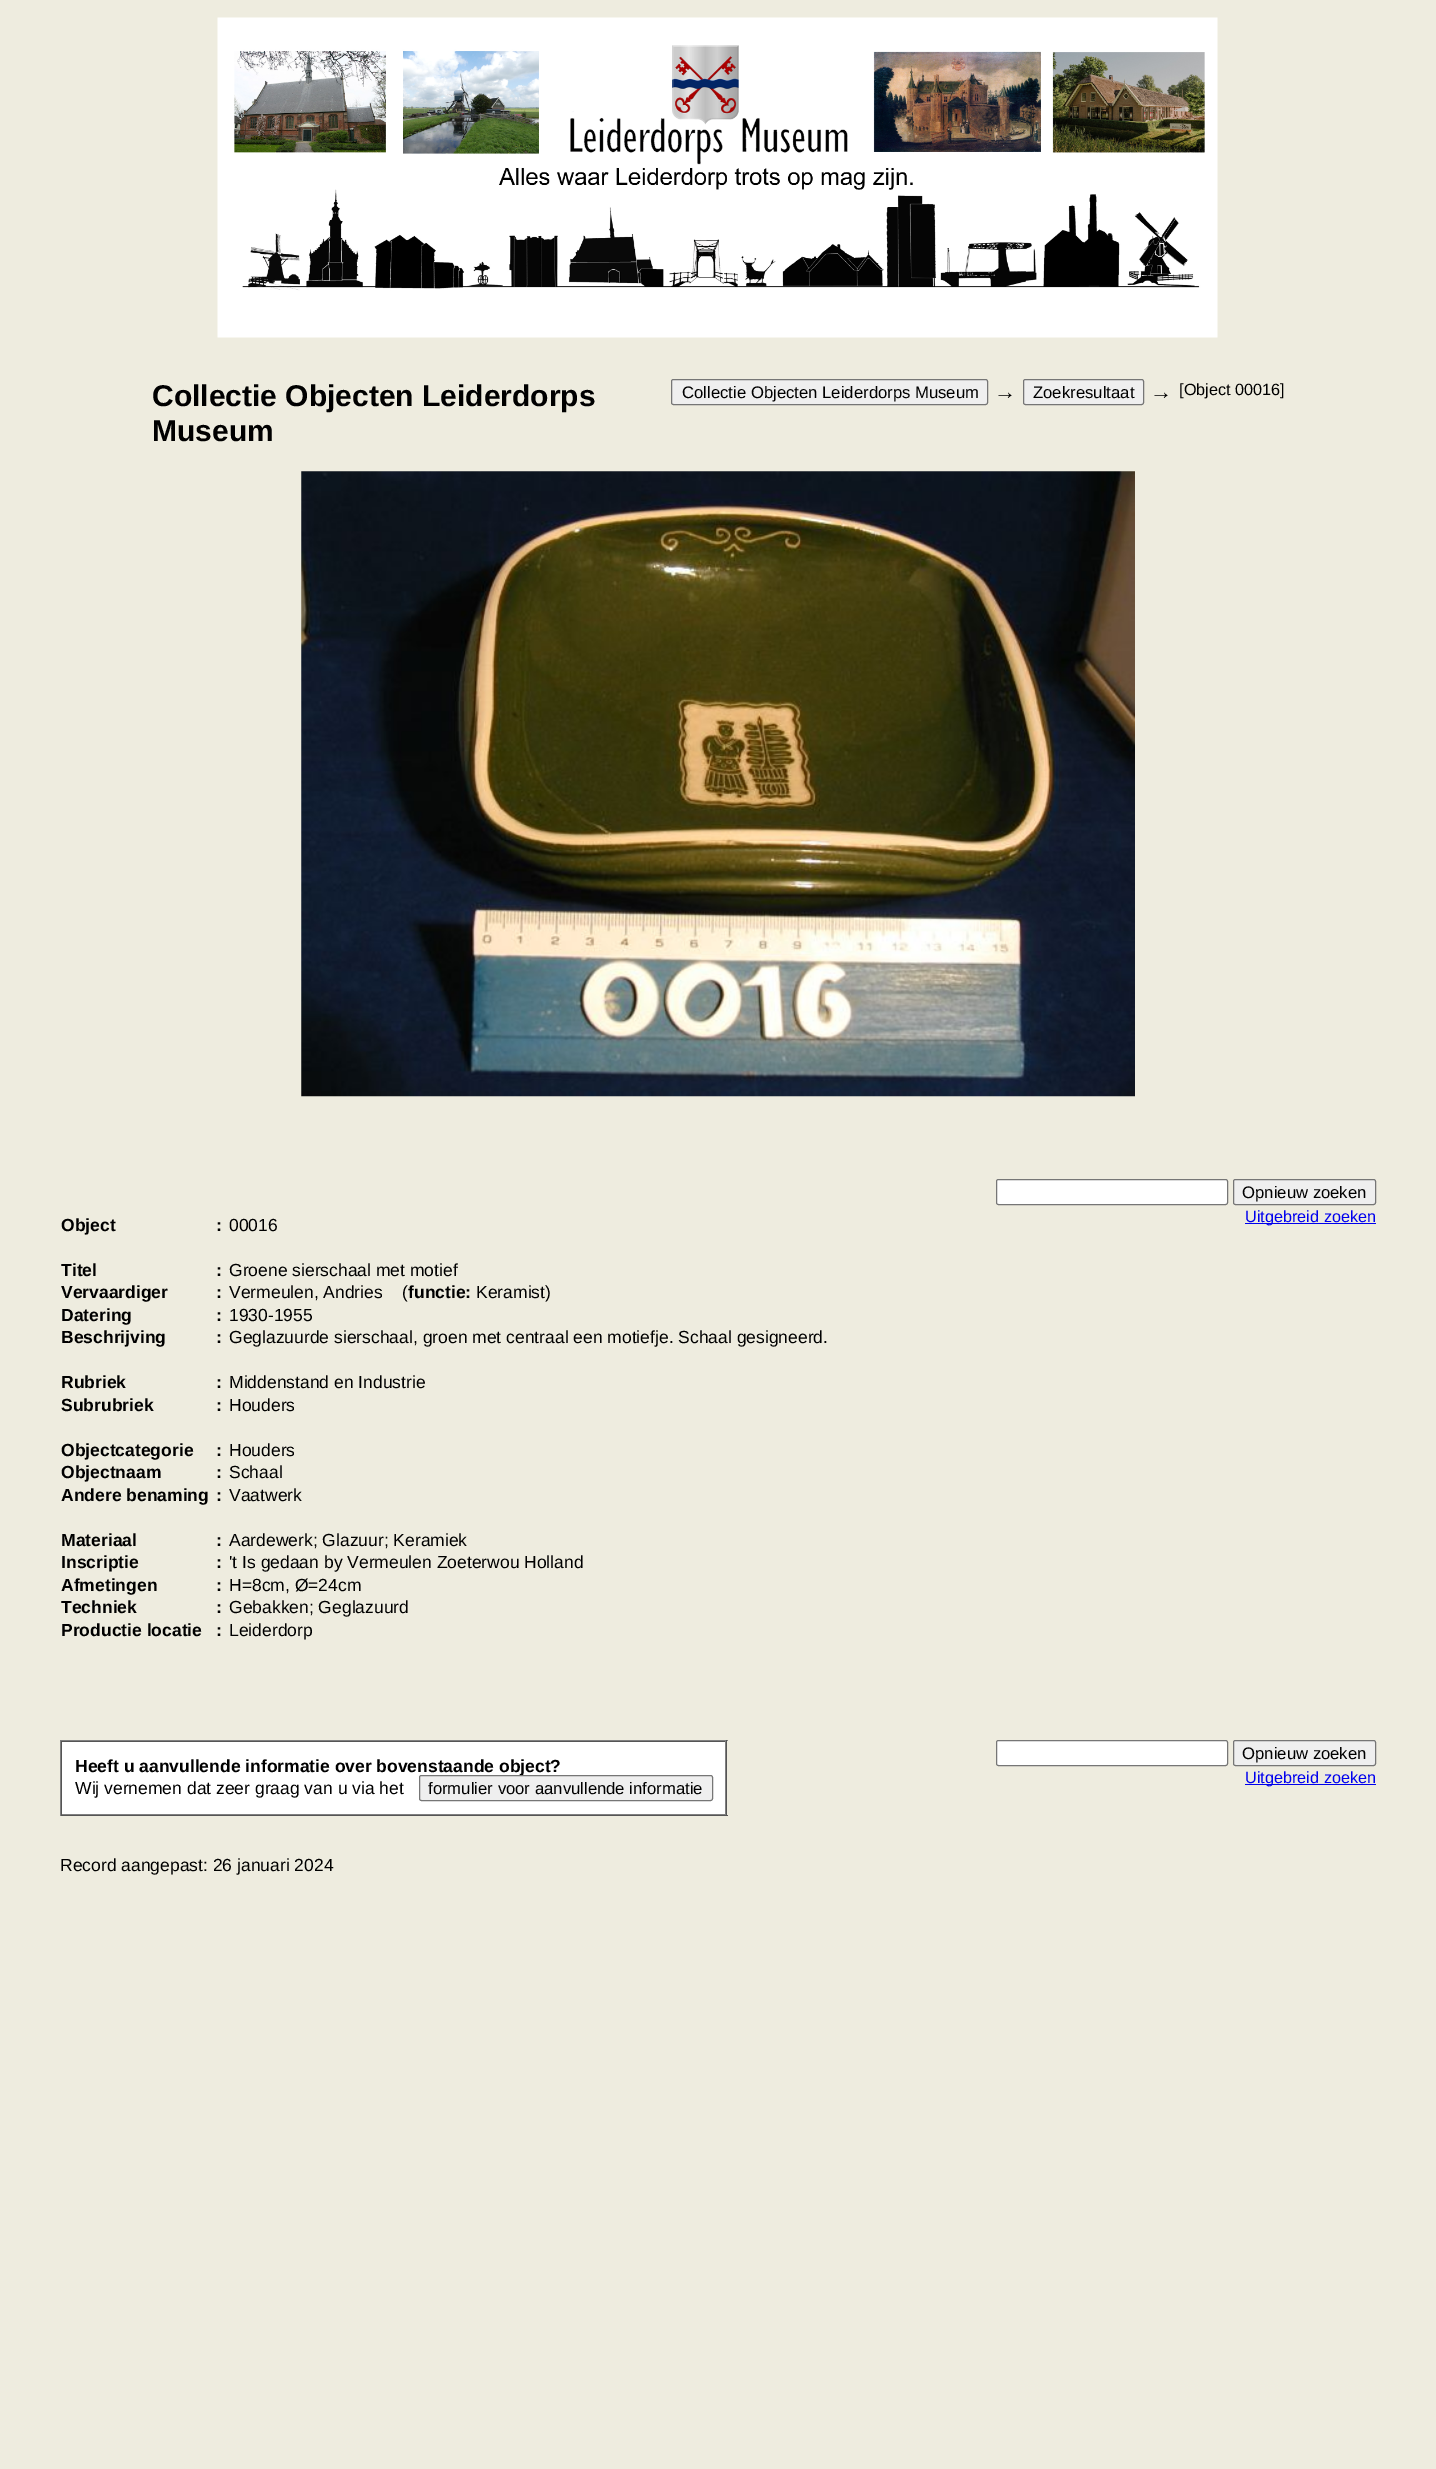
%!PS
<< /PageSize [1436 2469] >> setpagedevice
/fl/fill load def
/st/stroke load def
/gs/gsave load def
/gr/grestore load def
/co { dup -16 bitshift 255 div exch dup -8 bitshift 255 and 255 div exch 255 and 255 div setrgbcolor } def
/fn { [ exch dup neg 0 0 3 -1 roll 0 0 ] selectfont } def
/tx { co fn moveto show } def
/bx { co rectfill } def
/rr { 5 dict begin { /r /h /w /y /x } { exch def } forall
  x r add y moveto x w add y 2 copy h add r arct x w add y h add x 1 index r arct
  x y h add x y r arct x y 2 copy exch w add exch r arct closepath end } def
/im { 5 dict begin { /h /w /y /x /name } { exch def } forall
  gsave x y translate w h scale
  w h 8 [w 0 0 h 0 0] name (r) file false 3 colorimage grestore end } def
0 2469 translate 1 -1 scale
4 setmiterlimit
0 0 1436 2469 16#EEECDF bx
(media/1.raw) 217 17 1001 321 im
16#EFEFEF co
671.5 379.5 316 25 2 rr gs fl gr
16#767676 co
st
16#EFEFEF co
1023.5 379.5 120 25 2 rr gs fl gr
16#767676 co
st
(media/2.raw) 301 471 834 626 im
16#FFFFFF co
996.5 1179.5 231 25 2 rr gs fl gr
16#767676 co
st
16#EFEFEF co
1233.5 1179.5 142 25 2 rr gs fl gr
16#767676 co
st
1245 1223 131 1 16#0000EE bx
60 1740 668 1 16#808080 bx
726 1740 1 76 16#555555 bx
60 1815 668 1 16#555555 bx
60 1740 1 76 16#808080 bx
62 1742 663 72 16#FFFFFF bx
61 1741 665 1 16#555555 bx
725 1741 1 74 16#808080 bx
61 1814 665 1 16#808080 bx
61 1741 1 74 16#555555 bx
16#FFFFFF co
996.5 1740.5 231 25 2 rr gs fl gr
16#767676 co
st
16#EFEFEF co
1233.5 1740.5 142 25 2 rr gs fl gr
16#767676 co
st
1245 1784 131 1 16#0000EE bx
(Collectie Objecten Leiderdorps) 152 406 /LiberationSans-Bold 30 16#000000 tx
(Museum) 152 441 /LiberationSans-Bold 30 16#000000 tx
(Collectie Objecten Leiderdorps Museum) 682 398 /LiberationSans-Regular 16.7 16#000000 tx
(→) 994 399 /LiberationSans-Regular 22 16#000000 tx
(Zoekresultaat) 1033 398 /LiberationSans-Regular 16.7 16#000000 tx
(→) 1150 399 /LiberationSans-Regular 22 16#000000 tx
([Object 00016]) 1179 395 /LiberationSans-Regular 16.25 16#000000 tx
(Opnieuw zoeken) 1242 1198 /LiberationSans-Regular 16.7 16#000000 tx
(Uitgebreid zoeken) 1245 1222 /LiberationSans-Regular 16.25 16#0000EE tx
(Object) 61 1231 /LiberationSans-Bold 17.5 16#000000 tx
(:) 216 1231 /LiberationSans-Bold 17.5 16#000000 tx
(00016) 229 1231 /LiberationSans-Regular 17.5 16#000000 tx
(Titel) 61 1276 /LiberationSans-Bold 17.5 16#000000 tx
(:) 216 1276 /LiberationSans-Bold 17.5 16#000000 tx
(Groene sierschaal met motief) 229 1276 /LiberationSans-Regular 17.5 16#000000 tx
(Vervaardiger) 61 1298 /LiberationSans-Bold 17.5 16#000000 tx
(:) 216 1298 /LiberationSans-Bold 17.5 16#000000 tx
(Vermeulen, Andries    \() 229 1298 /LiberationSans-Regular 17.5 16#000000 tx
(functie:) 408 1298 /LiberationSans-Bold 17.5 16#000000 tx
(Keramist\)) 476 1298 /LiberationSans-Regular 17.5 16#000000 tx
(Datering) 61 1321 /LiberationSans-Bold 17.5 16#000000 tx
(:) 216 1321 /LiberationSans-Bold 17.5 16#000000 tx
(1930-1955) 229 1321 /LiberationSans-Regular 17.5 16#000000 tx
(Beschrijving) 61 1343 /LiberationSans-Bold 17.5 16#000000 tx
(:) 216 1343 /LiberationSans-Bold 17.5 16#000000 tx
(Geglazuurde sierschaal, groen met centraal een motiefje. Schaal gesigneerd.) 229 1343 /LiberationSans-Regular 17.5 16#000000 tx
(Rubriek) 61 1388 /LiberationSans-Bold 17.5 16#000000 tx
(:) 216 1388 /LiberationSans-Bold 17.5 16#000000 tx
(Middenstand en Industrie) 229 1388 /LiberationSans-Regular 17.5 16#000000 tx
(Subrubriek) 61 1411 /LiberationSans-Bold 17.5 16#000000 tx
(:) 216 1411 /LiberationSans-Bold 17.5 16#000000 tx
(Houders) 229 1411 /LiberationSans-Regular 17.5 16#000000 tx
(Objectcategorie) 61 1456 /LiberationSans-Bold 17.5 16#000000 tx
(:) 216 1456 /LiberationSans-Bold 17.5 16#000000 tx
(Houders) 229 1456 /LiberationSans-Regular 17.5 16#000000 tx
(Objectnaam) 61 1478 /LiberationSans-Bold 17.5 16#000000 tx
(:) 216 1478 /LiberationSans-Bold 17.5 16#000000 tx
(Schaal) 229 1478 /LiberationSans-Regular 17.5 16#000000 tx
(Andere benaming) 61 1501 /LiberationSans-Bold 17.5 16#000000 tx
(:) 216 1501 /LiberationSans-Bold 17.5 16#000000 tx
(Vaatwerk) 229 1501 /LiberationSans-Regular 17.5 16#000000 tx
(Materiaal) 61 1546 /LiberationSans-Bold 17.5 16#000000 tx
(:) 216 1546 /LiberationSans-Bold 17.5 16#000000 tx
(Aardewerk; Glazuur; Keramiek) 229 1546 /LiberationSans-Regular 17.5 16#000000 tx
(Inscriptie) 61 1568 /LiberationSans-Bold 17.5 16#000000 tx
(:) 216 1568 /LiberationSans-Bold 17.5 16#000000 tx
('t Is gedaan by Vermeulen Zoeterwou Holland) 229 1568 /LiberationSans-Regular 17.5 16#000000 tx
(Afmetingen) 61 1591 /LiberationSans-Bold 17.5 16#000000 tx
(:) 216 1591 /LiberationSans-Bold 17.5 16#000000 tx
(H=8cm, Ø=24cm) 229 1591 /LiberationSans-Regular 17.5 16#000000 tx
(Techniek) 61 1613 /LiberationSans-Bold 17.5 16#000000 tx
(:) 216 1613 /LiberationSans-Bold 17.5 16#000000 tx
(Gebakken; Geglazuurd) 229 1613 /LiberationSans-Regular 17.5 16#000000 tx
(Productie locatie) 61 1636 /LiberationSans-Bold 17.5 16#000000 tx
(:) 216 1636 /LiberationSans-Bold 17.5 16#000000 tx
(Leiderdorp) 229 1636 /LiberationSans-Regular 17.5 16#000000 tx
(Heeft u aanvullende informatie over bovenstaande object?) 75 1772 /LiberationSans-Bold 17.5 16#000000 tx
(Wij vernemen dat zeer graag van u via het) 75 1794 /LiberationSans-Regular 17.5 16#000000 tx
16#EFEFEF co
419.5 1775.5 293 25 2 rr gs fl gr
16#767676 co
st
(formulier voor aanvullende informatie) 428 1794 /LiberationSans-Regular 16.7 16#000000 tx
(Opnieuw zoeken) 1242 1759 /LiberationSans-Regular 16.7 16#000000 tx
(Uitgebreid zoeken) 1245 1783 /LiberationSans-Regular 16.25 16#0000EE tx
(Record aangepast: 26 januari 2024) 60 1871 /LiberationSans-Regular 17.5 16#000000 tx
showpage
